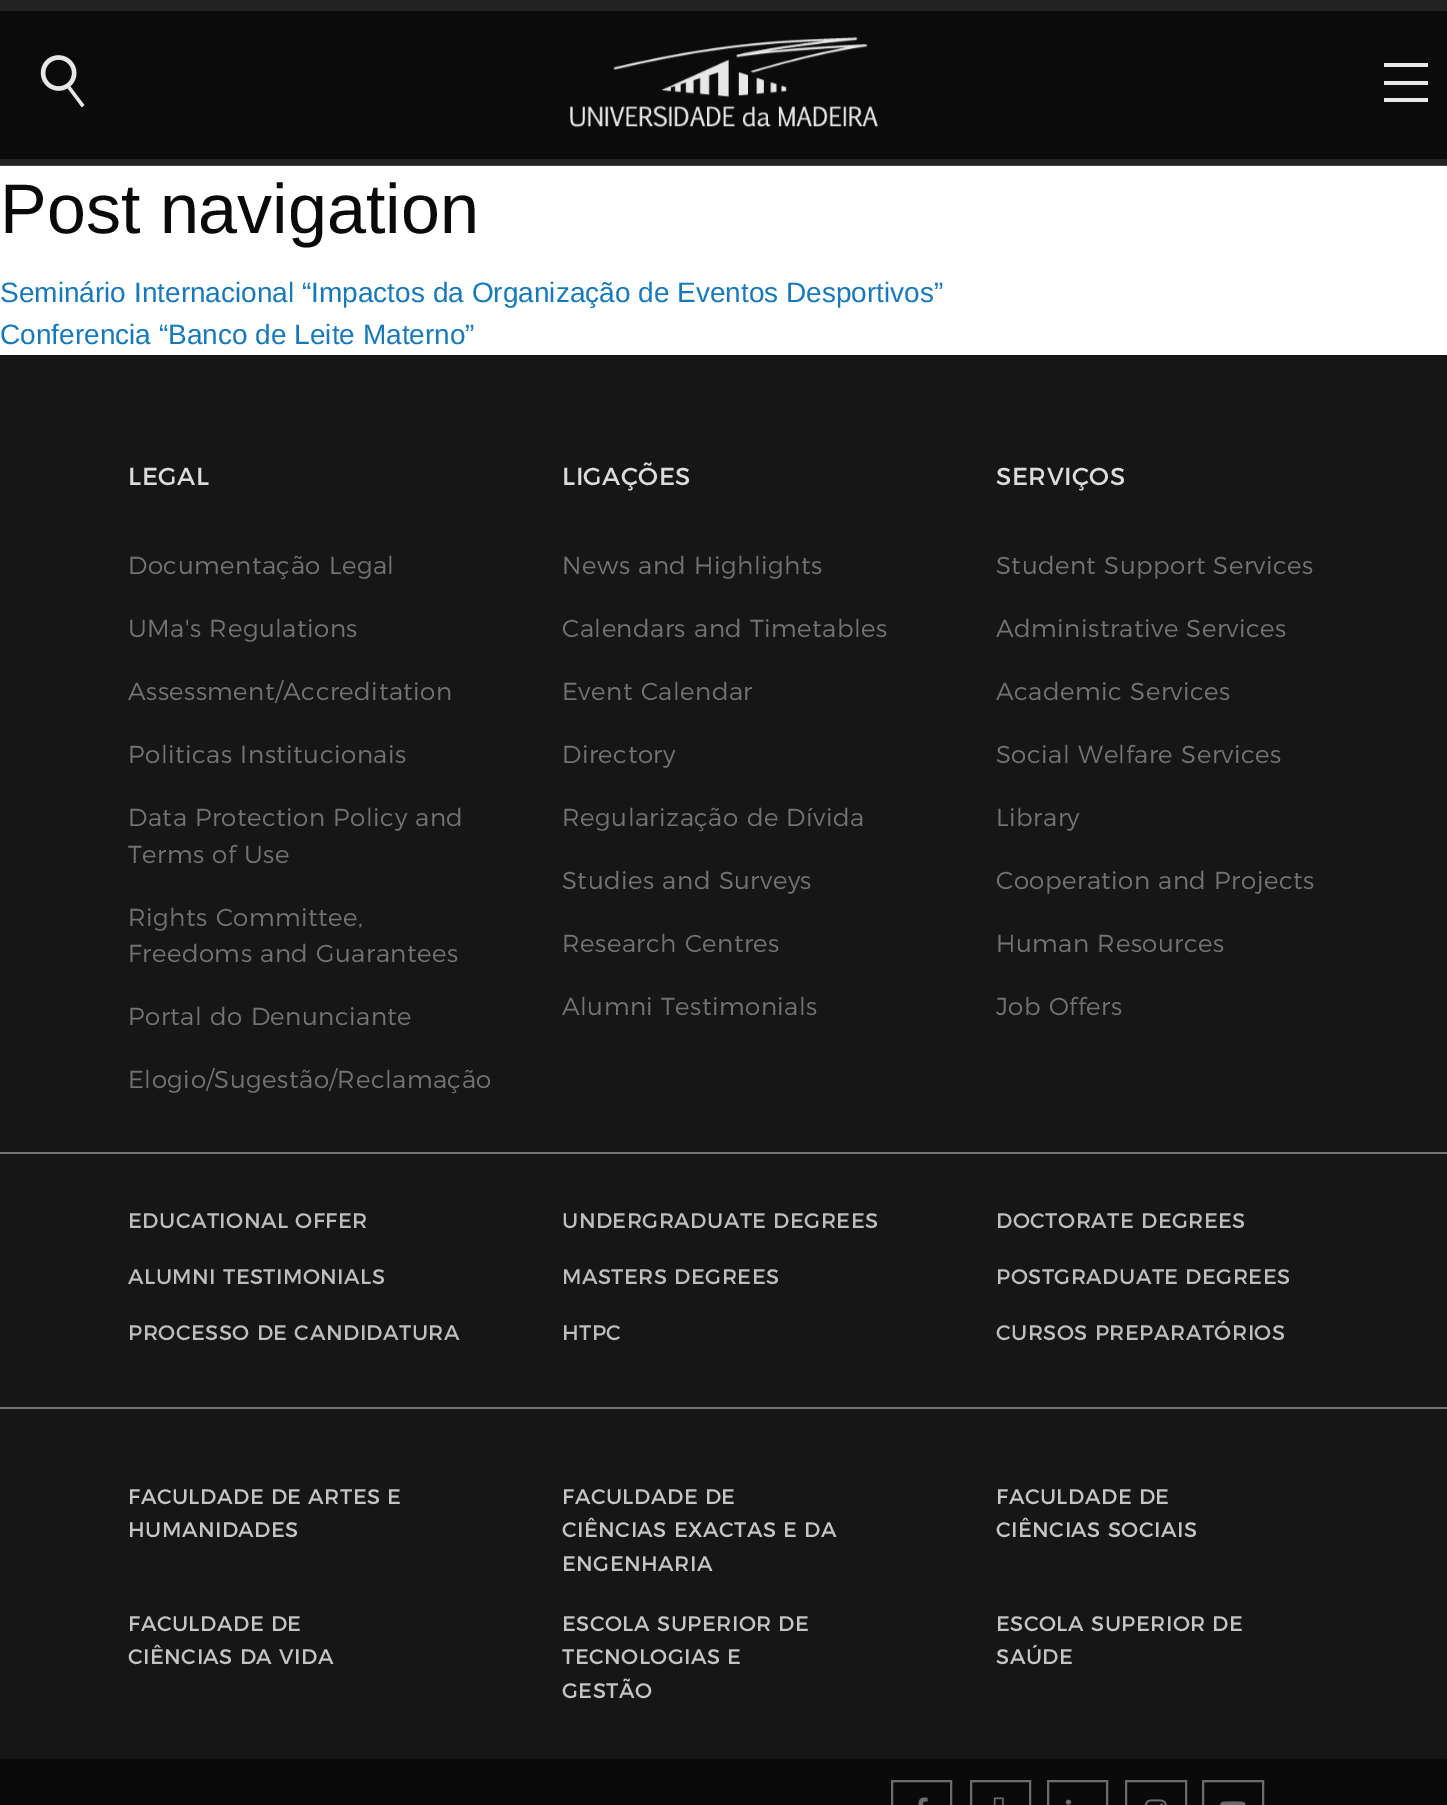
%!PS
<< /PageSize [1447 1805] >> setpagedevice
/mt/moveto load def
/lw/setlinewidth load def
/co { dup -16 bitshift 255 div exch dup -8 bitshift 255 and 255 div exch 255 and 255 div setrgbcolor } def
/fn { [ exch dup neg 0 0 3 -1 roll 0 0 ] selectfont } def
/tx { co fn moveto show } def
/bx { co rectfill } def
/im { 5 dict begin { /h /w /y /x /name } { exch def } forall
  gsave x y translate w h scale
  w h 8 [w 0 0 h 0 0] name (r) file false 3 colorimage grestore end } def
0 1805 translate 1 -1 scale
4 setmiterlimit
0 0 1447 1805 16#FFFFFF bx
0 0 1447 165 16#222222 bx
0 165 1447 1 16#434343 bx
0 11 1447 148 16#0B0B0B bx
(media/1.raw) 40 55 45 53 im
(media/2.raw) 570 37 309 91 im
1384 63 44 4 16#E8E8E8 bx
1384 81 44 4 16#E8E8E8 bx
1384 98 44 4 16#E8E8E8 bx
0 355 1447 1404 16#171616 bx
0 1152 1447 2 16#747373 bx
0 1407 1447 2 16#747373 bx
0 1759 1447 46 16#0A0A0A bx
16#6C6C6C co
2 lw
892 1781 59 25 rectstroke
(media/3.raw) 918 1797 10 8 im
971 1781 59 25 rectstroke
(media/4.raw) 993 1797 11 8 im
1048 1781 59 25 rectstroke
(media/5.raw) 1065 1799 7 6 im
1126 1781 60 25 rectstroke
(media/6.raw) 1144 1799 23 6 im
1203 1781 60 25 rectstroke
(media/7.raw) 1220 1801 26 4 im
(Post navigation) 0 233 /LiberationSans-Regular 70 16#0A0A0A tx
(Seminário Internacional “Impactos da Organização de Eventos Desportivos”) 0 302 /LiberationSans-Regular 28 16#1779BA tx
(Conferencia “Banco de Leite Materno”) 0 344 /LiberationSans-Regular 28 16#1779BA tx
/Montserrat-Regular 24.5 fn
16#DCDCDC co
128 485 mt .5 0 (LEGAL) ashow
/Montserrat-Light 24.5 fn
16#747373 co
128 574 mt .5 0 (Documentação Legal) ashow
128 637 mt .5 0 (UMa's Regulations) ashow
128 700 mt .5 0 (Assessment/Accreditation) ashow
128 763 mt .5 0 (Politicas Institucionais) ashow
128 826 mt .5 0 (Data Protection Policy and) ashow
128 863 mt .5 0 (Terms of Use) ashow
128 926 mt .5 0 (Rights Committee,) ashow
128 962 mt .5 0 (Freedoms and Guarantees) ashow
128 1025 mt .5 0 (Portal do Denunciante) ashow
128 1088 mt .5 0 (Elogio/Sugestão/Reclamação) ashow
/Montserrat-Regular 24.5 fn
16#DCDCDC co
562 485 mt .5 0 (LIGAÇÕES) ashow
/Montserrat-Light 24.5 fn
16#747373 co
562 574 mt .5 0 (News and Highlights) ashow
562 637 mt .5 0 (Calendars and Timetables) ashow
562 700 mt .5 0 (Event Calendar) ashow
562 763 mt .5 0 (Directory) ashow
562 826 mt .5 0 (Regularização de Dívida) ashow
562 889 mt .5 0 (Studies and Surveys) ashow
562 952 mt .5 0 (Research Centres) ashow
562 1015 mt .5 0 (Alumni Testimonials) ashow
/Montserrat-Regular 24.5 fn
16#DCDCDC co
996 485 mt .5 0 (SERVIÇOS) ashow
/Montserrat-Light 24.5 fn
16#747373 co
996 574 mt .5 0 (Student Support Services) ashow
996 637 mt .5 0 (Administrative Services) ashow
996 700 mt .5 0 (Academic Services) ashow
996 763 mt .5 0 (Social Welfare Services) ashow
996 826 mt .5 0 (Library) ashow
996 889 mt .5 0 (Cooperation and Projects) ashow
996 952 mt .5 0 (Human Resources) ashow
996 1015 mt .5 0 (Job Offers) ashow
/Montserrat-Regular 21 fn
16#BFBEBE co
128 1228 mt .5 0 (EDUCATIONAL OFFER) ashow
562 1228 mt .5 0 (UNDERGRADUATE DEGREES) ashow
996 1228 mt .5 0 (DOCTORATE DEGREES) ashow
128 1284 mt .5 0 (ALUMNI TESTIMONIALS) ashow
562 1284 mt .5 0 (MASTERS DEGREES) ashow
996 1284 mt .5 0 (POSTGRADUATE DEGREES) ashow
128 1340 mt .5 0 (PROCESSO DE CANDIDATURA) ashow
562 1340 mt .5 0 (HTPC) ashow
996 1340 mt .5 0 (CURSOS PREPARATÓRIOS) ashow
16#C5C5C5 co
128 1504 mt .5 0 (FACULDADE DE ARTES E) ashow
128 1537 mt .5 0 (HUMANIDADES) ashow
562 1504 mt .5 0 (FACULDADE DE) ashow
562 1537 mt .5 0 (CIÊNCIAS EXACTAS E DA) ashow
562 1571 mt .5 0 (ENGENHARIA) ashow
996 1504 mt .5 0 (FACULDADE DE) ashow
996 1537 mt .5 0 (CIÊNCIAS SOCIAIS) ashow
128 1631 mt .5 0 (FACULDADE DE) ashow
128 1664 mt .5 0 (CIÊNCIAS DA VIDA) ashow
562 1631 mt .5 0 (ESCOLA SUPERIOR DE) ashow
562 1664 mt .5 0 (TECNOLOGIAS E) ashow
562 1698 mt .5 0 (GESTÃO) ashow
996 1631 mt .5 0 (ESCOLA SUPERIOR DE) ashow
996 1664 mt .5 0 (SAÚDE) ashow
showpage
